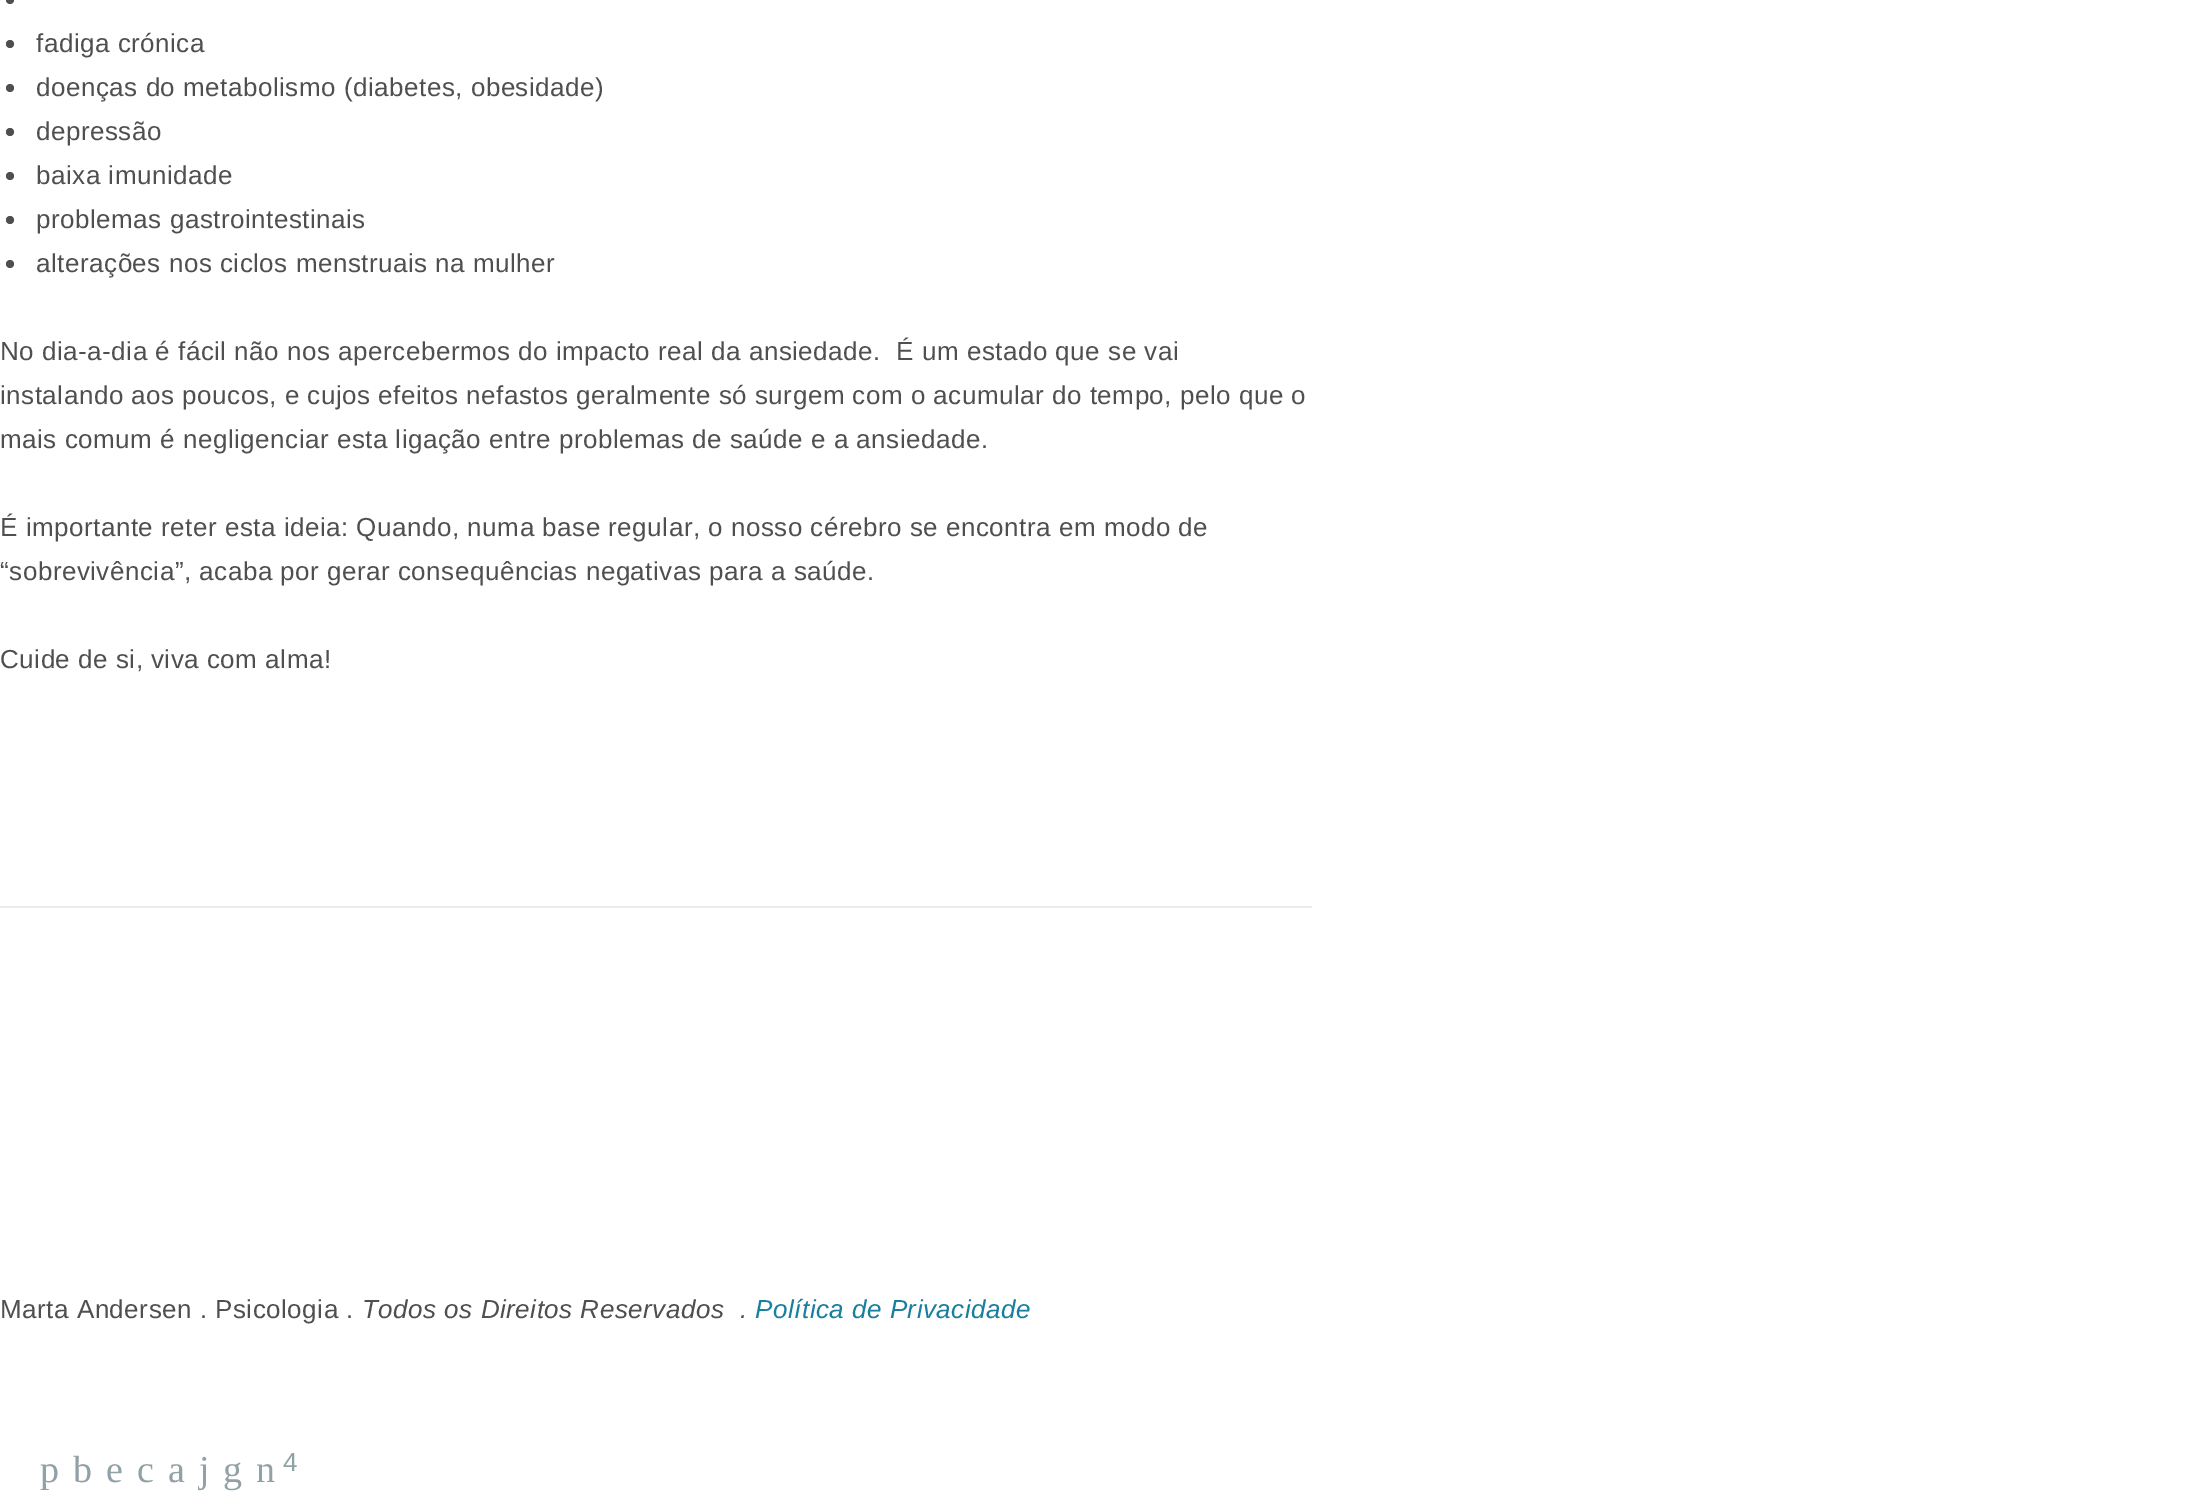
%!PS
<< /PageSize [2185 1512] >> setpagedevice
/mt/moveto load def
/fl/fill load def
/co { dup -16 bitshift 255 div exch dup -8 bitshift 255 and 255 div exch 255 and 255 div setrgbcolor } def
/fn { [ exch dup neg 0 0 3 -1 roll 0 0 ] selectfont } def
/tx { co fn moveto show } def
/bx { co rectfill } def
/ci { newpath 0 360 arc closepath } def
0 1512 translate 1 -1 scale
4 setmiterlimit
0 0 2185 1512 16#FFFFFF bx
0 906 1312 2 16#EDEDED bx
16#4F4F4F co
10 0 4 ci fl
10 44 4 ci fl
10 88 4 ci fl
10 132 4 ci fl
10 176 4 ci fl
10 220 4 ci fl
10 264 4 ci fl
/LiberationSans-Regular 26 fn
36 52 mt .5 0 (fadiga crónica) ashow
36 96 mt .5 0 (doenças do metabolismo \(diabetes, obesidade\)) ashow
36 140 mt .5 0 (depressão) ashow
36 184 mt .5 0 (baixa imunidade) ashow
36 228 mt .5 0 (problemas gastrointestinais) ashow
36 272 mt .5 0 (alterações nos ciclos menstruais na mulher) ashow
0 360 mt .5 0 (No dia-a-dia é fácil não nos apercebermos do impacto real da ansiedade.  É um estado que se vai) ashow
0 404 mt .5 0 (instalando aos poucos, e cujos efeitos nefastos geralmente só surgem com o acumular do tempo, pelo que o) ashow
0 448 mt .5 0 (mais comum é negligenciar esta ligação entre problemas de saúde e a ansiedade.) ashow
0 536 mt .5 0 (É importante reter esta ideia: Quando, numa base regular, o nosso cérebro se encontra em modo de) ashow
0 580 mt .5 0 (“sobrevivência”, acaba por gerar consequências negativas para a saúde.) ashow
0 668 mt .5 0 (Cuide de si, viva com alma!) ashow
0 1318 mt .5 0 (Marta Andersen . Psicologia .) ashow
/LiberationSans-Italic 26 fn
362 1318 mt .5 0 (Todos os Direitos Reservados  .) ashow
16#197F9E co
755 1318 mt .5 0 (Política de Privacidade) ashow
(p) 40 1482 /LiberationSerif-Regular 38 16#91A1A6 tx
(b) 73 1482 /LiberationSerif-Regular 38 16#91A1A6 tx
(e) 106 1482 /LiberationSerif-Regular 38 16#91A1A6 tx
(c) 137 1482 /LiberationSerif-Regular 38 16#91A1A6 tx
(a) 168 1482 /LiberationSerif-Regular 38 16#91A1A6 tx
(j) 199 1482 /LiberationSerif-Regular 38 16#91A1A6 tx
(g) 223 1482 /LiberationSerif-Regular 38 16#91A1A6 tx
(4) 283 1471 /LiberationSans-Regular 26 16#91A1A6 tx
(n) 256 1482 /LiberationSerif-Regular 38 16#91A1A6 tx
showpage
